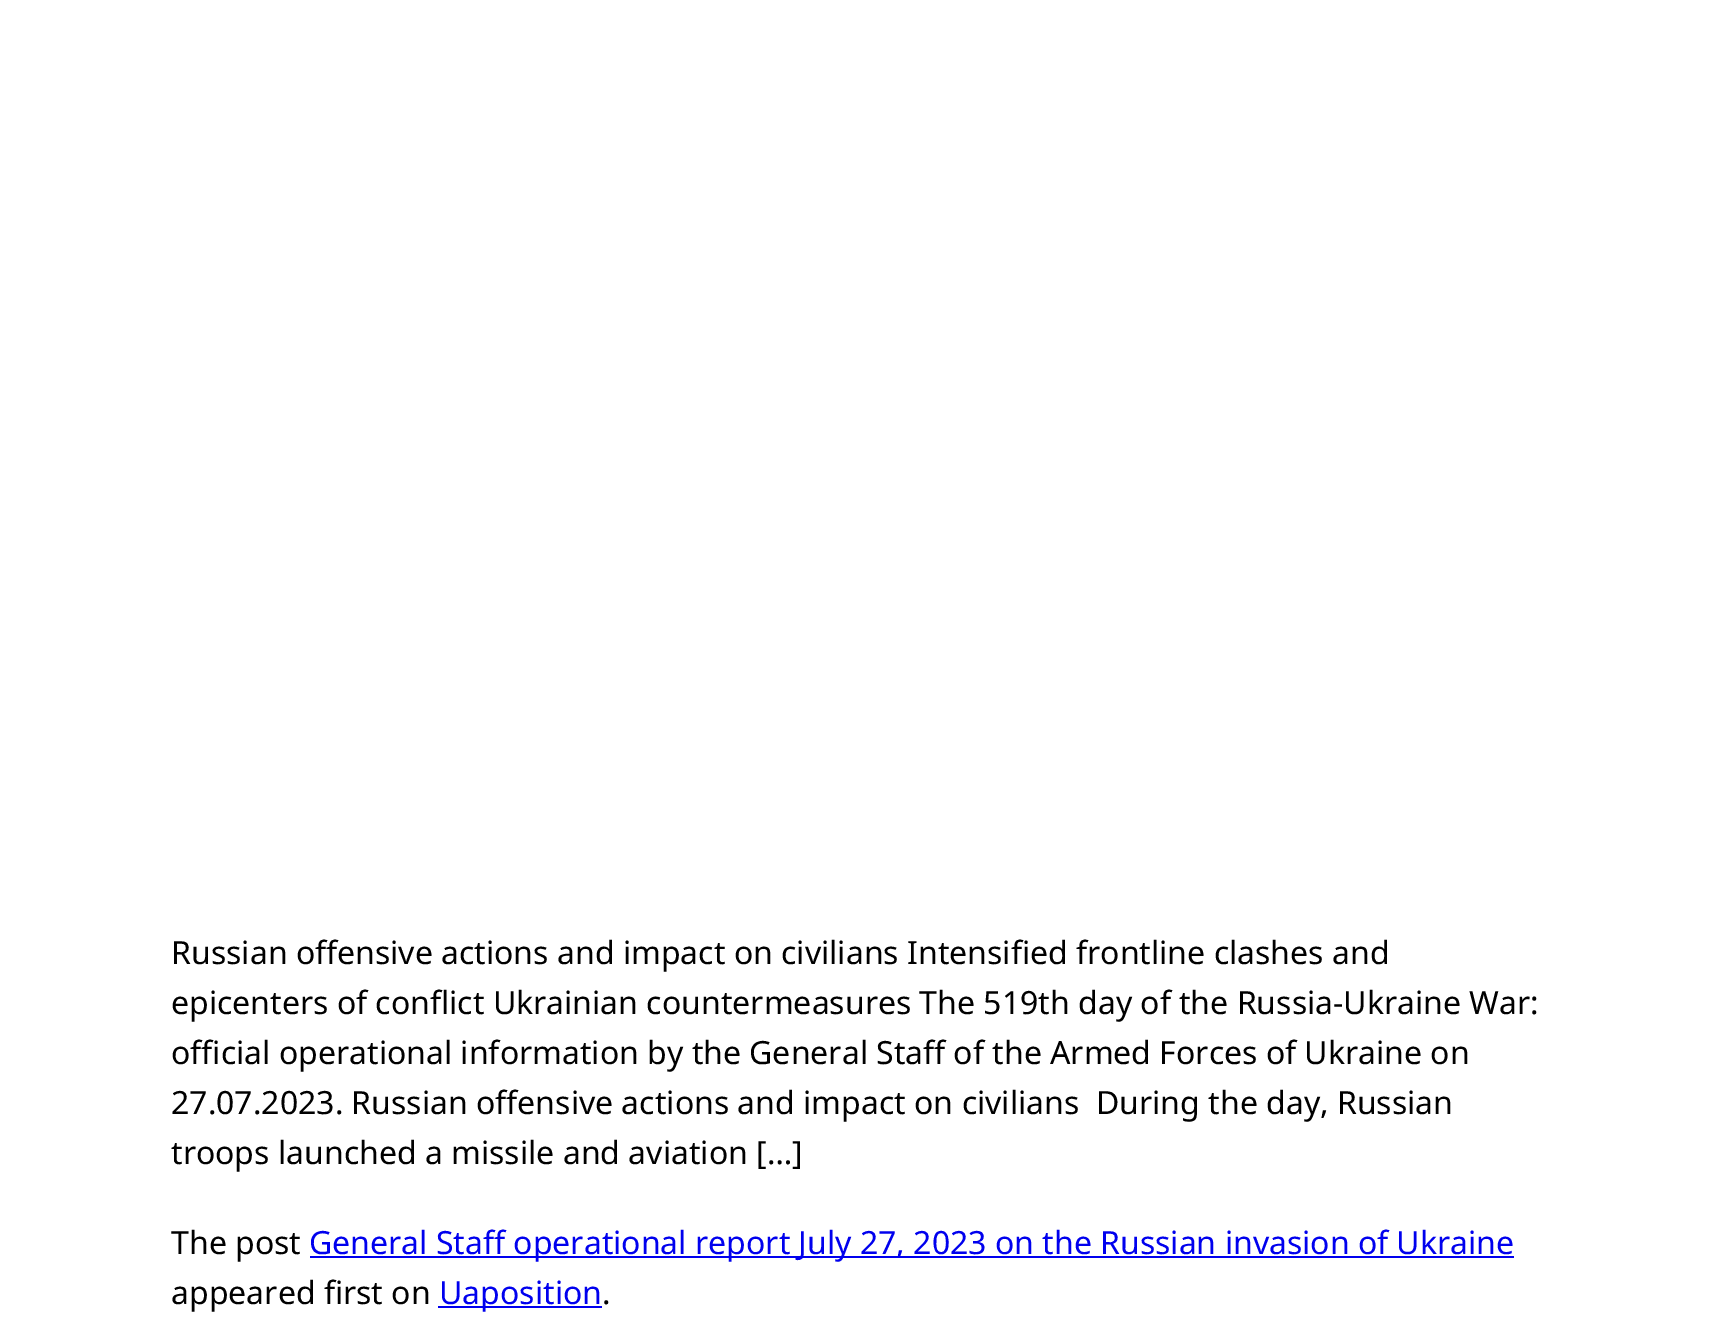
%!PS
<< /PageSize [1711 1341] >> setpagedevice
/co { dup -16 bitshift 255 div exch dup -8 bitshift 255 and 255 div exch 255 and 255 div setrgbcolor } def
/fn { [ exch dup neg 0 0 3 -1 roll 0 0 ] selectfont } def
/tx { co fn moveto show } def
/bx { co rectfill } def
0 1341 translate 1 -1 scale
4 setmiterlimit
0 0 1711 1341 16#FFFFFF bx
310 1256 1204 2 16#0000EE bx
438 1306 164 2 16#0000EE bx
(Russian offensive actions and impact on civilians Intensified frontline clashes and) 171 964 /NotoSans-Regular 32 16#000000 tx
(epicenters of conflict Ukrainian countermeasures The 519th day of the Russia-Ukraine War:) 171 1014 /NotoSans-Regular 32 16#000000 tx
(official operational information by the General Staff of the Armed Forces of Ukraine on) 171 1064 /NotoSans-Regular 32 16#000000 tx
(27.07.2023. Russian offensive actions and impact on civilians  During the day, Russian) 171 1114 /NotoSans-Regular 32 16#000000 tx
(troops launched a missile and aviation […]) 171 1164 /NotoSans-Regular 32 16#000000 tx
(The post) 171 1254 /NotoSans-Regular 32 16#000000 tx
(General Staff operational report July 27, 2023 on the Russian invasion of Ukraine) 309 1254 /NotoSans-Regular 32 16#0000EE tx
(appeared first on) 171 1304 /NotoSans-Regular 32 16#000000 tx
(Uaposition) 439 1304 /NotoSans-Regular 32 16#0000EE tx
(.) 602 1304 /NotoSans-Regular 32 16#000000 tx
showpage
